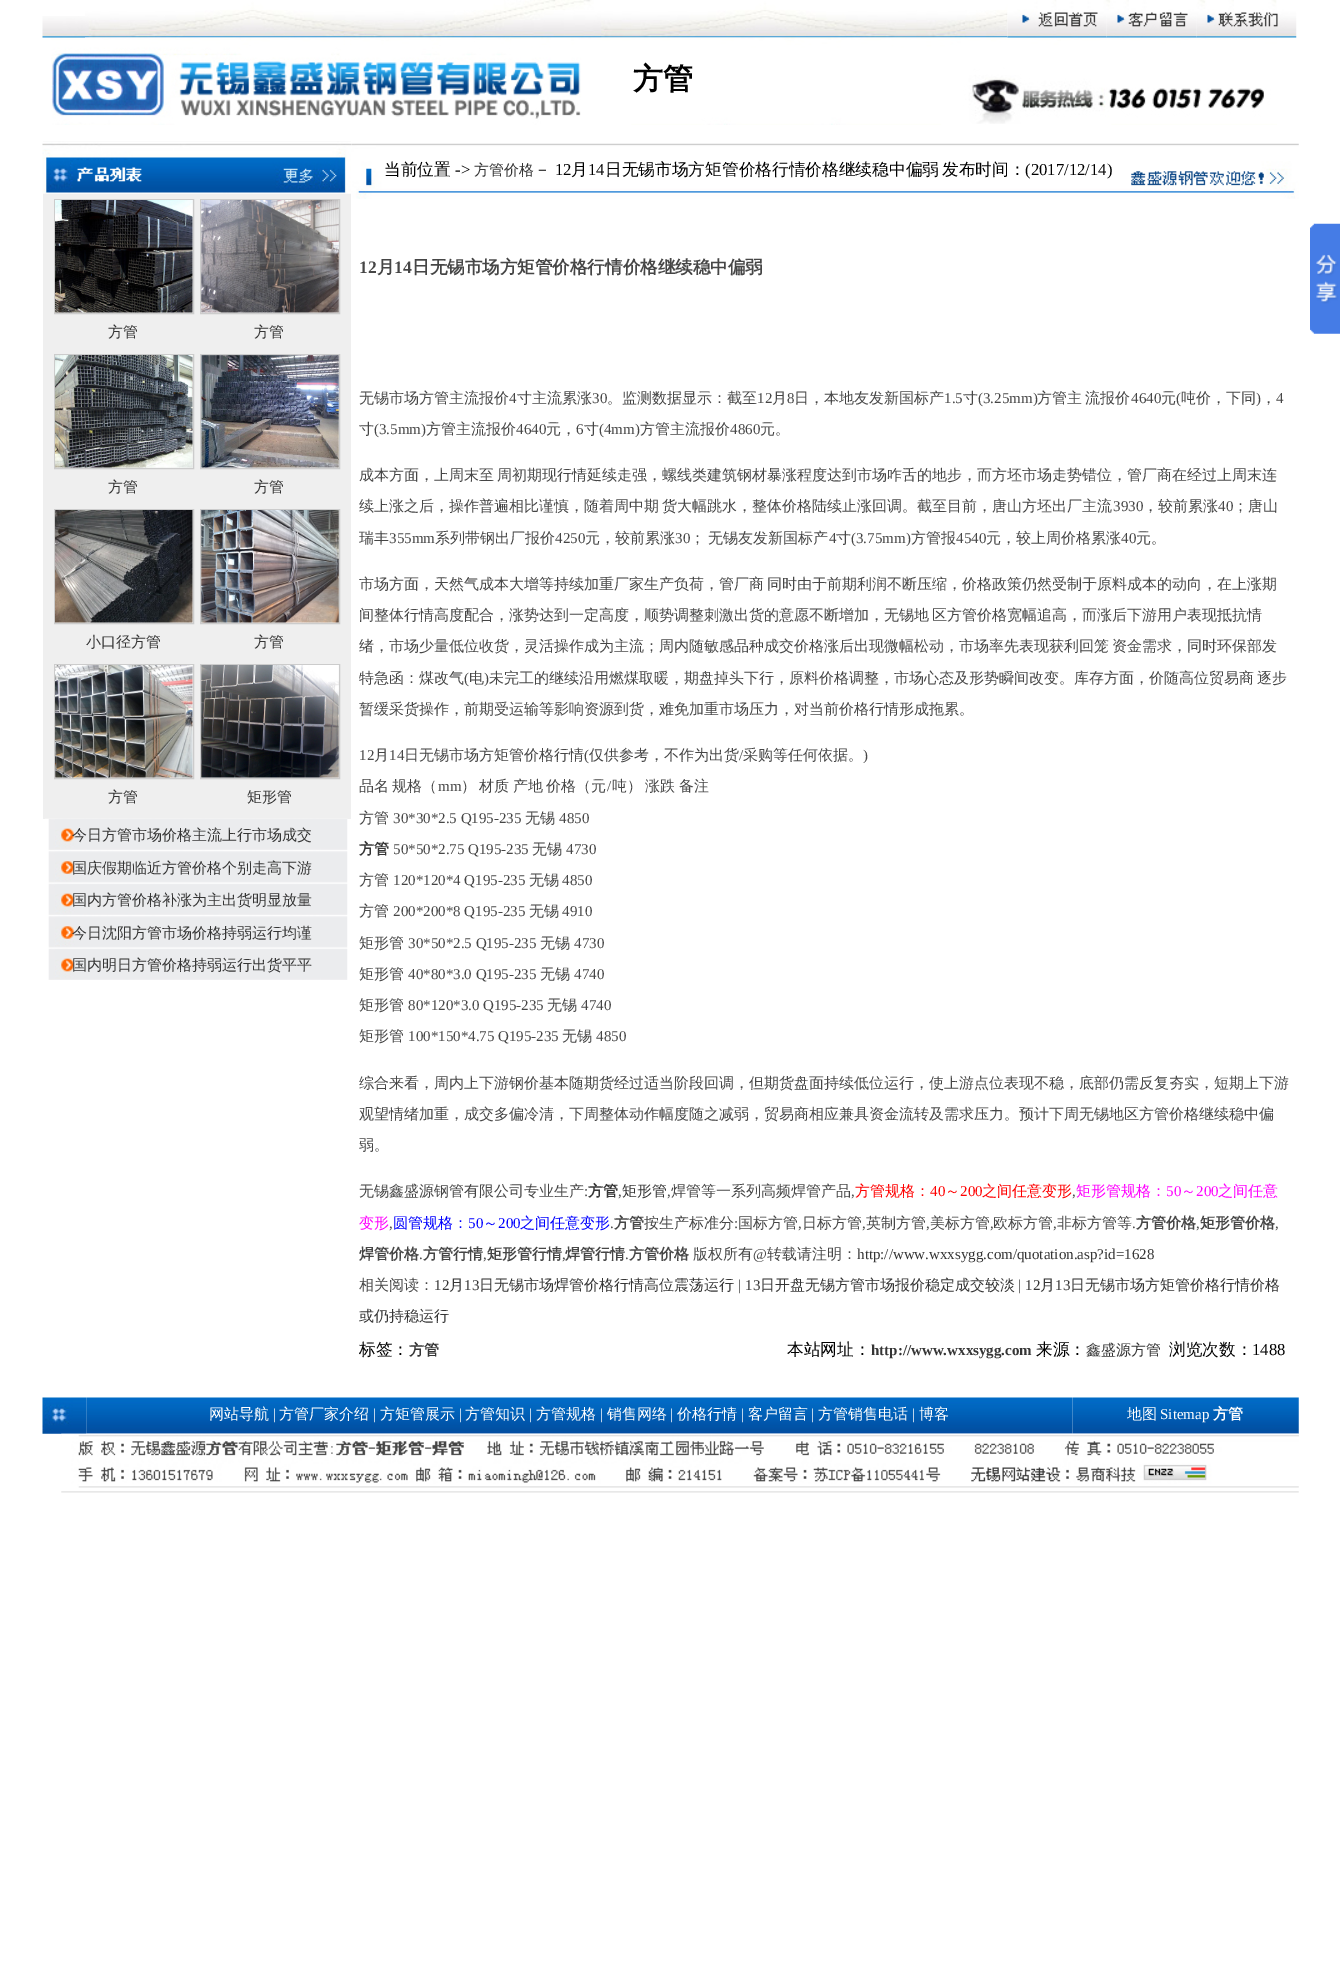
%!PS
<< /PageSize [1340 1962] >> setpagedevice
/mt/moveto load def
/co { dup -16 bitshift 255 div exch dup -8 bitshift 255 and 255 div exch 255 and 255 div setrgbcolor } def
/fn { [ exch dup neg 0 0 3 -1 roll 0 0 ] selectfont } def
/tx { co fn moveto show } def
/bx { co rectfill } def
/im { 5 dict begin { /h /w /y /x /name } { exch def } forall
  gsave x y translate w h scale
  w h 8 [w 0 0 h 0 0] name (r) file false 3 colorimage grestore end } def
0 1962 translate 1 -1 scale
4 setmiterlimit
0 0 1340 1962 16#FFFFFF bx
(media/2.raw) 85 0 923 38 im
(media/6.raw) 51 37 1226 88 im
(media/1.raw) 42 16 43 22 im
(media/3.raw) 1007 0 100 38 im
(media/4.raw) 1106 0 91 38 im
(media/5.raw) 1196 0 101 38 im
43 141 308 678 16#EFEFEF bx
(media/7.raw) 42 141 309 53 im
16#CCCCCC co
54.5 199.5 139 114 rectstroke
(media/8.raw) 55 200 138 113 im
200.5 199.5 139 114 rectstroke
(media/9.raw) 201 200 138 113 im
54.5 354.5 139 114 rectstroke
(media/10.raw) 55 355 138 113 im
200.5 354.5 139 114 rectstroke
(media/11.raw) 201 355 138 113 im
54.5 509.5 139 114 rectstroke
(media/12.raw) 55 510 138 113 im
200.5 509.5 139 114 rectstroke
(media/13.raw) 201 510 138 113 im
54.5 664.5 139 114 rectstroke
(media/14.raw) 55 665 138 113 im
200.5 664.5 139 114 rectstroke
(media/15.raw) 201 665 138 113 im
(media/16.raw) 45 818 303 162 im
(media/17.raw) 351 143 948 56 im
(media/18.raw) 1310 223 30 111 im
(media/20.raw) 86 1397 987 37 im
(media/21.raw) 1072 1397 227 37 im
(media/22.raw) 61 1433 1238 4 im
(media/19.raw) 42 1397 45 37 im
(media/23.raw) 61 1433 1238 55 im
(media/24.raw) 61 1491 1238 2 im
(方管) 633 89 /WenQuanYiZenHei-Bold 30 16#000000 tx
(方管) 108 337 /WenQuanYiZenHei-Medium 15 16#353535 tx
(方管) 254 337 /WenQuanYiZenHei-Medium 15 16#353535 tx
(方管) 108 492 /WenQuanYiZenHei-Medium 15 16#353535 tx
(方管) 254 492 /WenQuanYiZenHei-Medium 15 16#353535 tx
(小口径方管) 86 647 /WenQuanYiZenHei-Medium 15 16#353535 tx
(方管) 254 647 /WenQuanYiZenHei-Medium 15 16#353535 tx
(方管) 108 802 /WenQuanYiZenHei-Medium 15 16#353535 tx
(矩形管) 247 802 /WenQuanYiZenHei-Medium 15 16#353535 tx
(今日方管市场价格主流上行市场成交) 72 840 /WenQuanYiZenHei-Medium 15 16#353535 tx
(国庆假期临近方管价格个别走高下游) 72 873 /WenQuanYiZenHei-Medium 15 16#353535 tx
(国内方管价格补涨为主出货明显放量) 72 905 /WenQuanYiZenHei-Medium 15 16#353535 tx
(今日沈阳方管市场价格持弱运行均谨) 72 938 /WenQuanYiZenHei-Medium 15 16#353535 tx
(国内明日方管价格持弱运行出货平平) 72 970 /WenQuanYiZenHei-Medium 15 16#353535 tx
(当前位置) 384 175 /WenQuanYiZenHei-Medium 16.7 16#000000 tx
(->) 455 175 /LiberationSerif-Regular 16.7 16#000000 tx
(方管价格) 474 175 /WenQuanYiZenHei-Medium 15 16#353535 tx
(－) 534 175 /WenQuanYiZenHei-Medium 16.7 16#000000 tx
(12) 555 175 /LiberationSerif-Regular 16.7 16#000000 tx
(月) 571 175 /WenQuanYiZenHei-Medium 16.7 16#000000 tx
(14) 588 175 /LiberationSerif-Regular 16.7 16#000000 tx
(日无锡市场方矩管价格行情价格继续稳中偏弱) 605 175 /WenQuanYiZenHei-Medium 16.7 16#000000 tx
(发布时间：) 942 175 /WenQuanYiZenHei-Medium 16.7 16#000000 tx
(\(2017/12/14\)) 1025 175 /LiberationSerif-Regular 16.7 16#000000 tx
(12) 359 273 /LiberationSerif-Bold 17.55 16#464646 tx
(月) 377 273 /WenQuanYiZenHei-Bold 17.55 16#464646 tx
(14) 394 273 /LiberationSerif-Bold 17.55 16#464646 tx
(日无锡市场方矩管价格行情价格继续稳中偏弱) 412 273 /WenQuanYiZenHei-Bold 17.55 16#464646 tx
(无锡市场方管主流报价) 359 403 /WenQuanYiZenHei-Medium 15 16#464646 tx
(4) 509 403 /LiberationSerif-Regular 15 16#464646 tx
(寸主流累涨) 517 403 /WenQuanYiZenHei-Medium 15 16#464646 tx
(30) 592 403 /LiberationSerif-Regular 15 16#464646 tx
(。监测数据显示：截至) 607 403 /WenQuanYiZenHei-Medium 15 16#464646 tx
(12) 757 403 /LiberationSerif-Regular 15 16#464646 tx
(月) 772 403 /WenQuanYiZenHei-Medium 15 16#464646 tx
(8) 787 403 /LiberationSerif-Regular 15 16#464646 tx
(日，本地友发新国标产) 794 403 /WenQuanYiZenHei-Medium 15 16#464646 tx
(1.5) 944 403 /LiberationSerif-Regular 15 16#464646 tx
(寸) 963 403 /WenQuanYiZenHei-Medium 15 16#464646 tx
(\(3.25mm\)) 978 403 /LiberationSerif-Regular 15 16#464646 tx
/WenQuanYiZenHei-Medium 15 fn
1037 403 mt -1 0 32 (方管主 流报价) widthshow
(4640) 1131 403 /LiberationSerif-Regular 15 16#464646 tx
(元) 1161 403 /WenQuanYiZenHei-Medium 15 16#464646 tx
(\() 1176 403 /LiberationSerif-Regular 15 16#464646 tx
(吨价，下同) 1181 403 /WenQuanYiZenHei-Medium 15 16#464646 tx
(\)) 1256 403 /LiberationSerif-Regular 15 16#464646 tx
(，) 1261 403 /WenQuanYiZenHei-Medium 15 16#464646 tx
(4) 1276 403 /LiberationSerif-Regular 15 16#464646 tx
(寸) 359 434 /WenQuanYiZenHei-Medium 15 16#464646 tx
(\(3.5mm\)) 374 434 /LiberationSerif-Regular 15 16#464646 tx
(方管主流报价) 426 434 /WenQuanYiZenHei-Medium 15 16#464646 tx
(4640) 516 434 /LiberationSerif-Regular 15 16#464646 tx
(元，) 546 434 /WenQuanYiZenHei-Medium 15 16#464646 tx
(6) 576 434 /LiberationSerif-Regular 15 16#464646 tx
(寸) 584 434 /WenQuanYiZenHei-Medium 15 16#464646 tx
(\(4mm\)) 599 434 /LiberationSerif-Regular 15 16#464646 tx
(方管主流报价) 640 434 /WenQuanYiZenHei-Medium 15 16#464646 tx
(4860) 730 434 /LiberationSerif-Regular 15 16#464646 tx
(元。) 760 434 /WenQuanYiZenHei-Medium 15 16#464646 tx
359 480 mt -1 0 32 (成本方面，上周末至 周初期现行情延续走强，螺线类建筑钢材暴涨程度达到市场咋舌的地步，而方坯市场走势错位，管厂商在经过上周末连) widthshow
359 511 mt -1 0 32 (续上涨之后，操作普遍相比谨慎，随着周中期 货大幅跳水，整体价格陆续止涨回调。截至目前，唐山方坯出厂主流) widthshow
(3930) 1113 511 /LiberationSerif-Regular 15 16#464646 tx
(，较前累涨) 1143 511 /WenQuanYiZenHei-Medium 15 16#464646 tx
(40) 1218 511 /LiberationSerif-Regular 15 16#464646 tx
(；唐山) 1233 511 /WenQuanYiZenHei-Medium 15 16#464646 tx
(瑞丰) 359 543 /WenQuanYiZenHei-Medium 15 16#464646 tx
(355mm) 389 543 /LiberationSerif-Regular 15 16#464646 tx
(系列带钢出厂报价) 435 543 /WenQuanYiZenHei-Medium 15 16#464646 tx
(4250) 555 543 /LiberationSerif-Regular 15 16#464646 tx
(元，较前累涨) 585 543 /WenQuanYiZenHei-Medium 15 16#464646 tx
(30) 675 543 /LiberationSerif-Regular 15 16#464646 tx
/WenQuanYiZenHei-Medium 15 fn
690 543 mt -1 0 32 (； 无锡友发新国标产) widthshow
(4) 829 543 /LiberationSerif-Regular 15 16#464646 tx
(寸) 836 543 /WenQuanYiZenHei-Medium 15 16#464646 tx
(\(3.75mm\)) 851 543 /LiberationSerif-Regular 15 16#464646 tx
(方管报) 911 543 /WenQuanYiZenHei-Medium 15 16#464646 tx
(4540) 956 543 /LiberationSerif-Regular 15 16#464646 tx
(元，较上周价格累涨) 986 543 /WenQuanYiZenHei-Medium 15 16#464646 tx
(40) 1121 543 /LiberationSerif-Regular 15 16#464646 tx
(元。) 1136 543 /WenQuanYiZenHei-Medium 15 16#464646 tx
359 589 mt -1 0 32 (市场方面，天然气成本大增等持续加重厂家生产负荷，管厂商 同时由于前期利润不断压缩，价格政策仍然受制于原料成本的动向，在上涨期) widthshow
359 620 mt -1 0 32 (间整体行情高度配合，涨势达到一定高度，顺势调整刺激出货的意愿不断增加，无锡地 区方管价格宽幅追高，而涨后下游用户表现抵抗情) widthshow
359 651 mt -1 0 32 (绪，市场少量低位收货，灵活操作成为主流；周内随敏感品种成交价格涨后出现微幅松动，市场率先表现获利回笼 资金需求，同时环保部发) widthshow
(特急函：煤改气) 359 683 /WenQuanYiZenHei-Medium 15 16#464646 tx
(\() 464 683 /LiberationSerif-Regular 15 16#464646 tx
(电) 469 683 /WenQuanYiZenHei-Medium 15 16#464646 tx
(\)) 484 683 /LiberationSerif-Regular 15 16#464646 tx
/WenQuanYiZenHei-Medium 15 fn
489 683 mt -1 0 32 (未完工的继续沿用燃煤取暖，期盘掉头下行，原料价格调整，市场心态及形势瞬间改变。库存方面，价随高位贸易商 逐步) widthshow
(暂缓采货操作，前期受运输等影响资源到货，难免加重市场压力，对当前价格行情形成拖累。) 359 714 /WenQuanYiZenHei-Medium 15 16#464646 tx
(12) 359 760 /LiberationSerif-Regular 15 16#464646 tx
(月) 374 760 /WenQuanYiZenHei-Medium 15 16#464646 tx
(14) 389 760 /LiberationSerif-Regular 15 16#464646 tx
(日无锡市场方矩管价格行情) 404 760 /WenQuanYiZenHei-Medium 15 16#464646 tx
(\() 584 760 /LiberationSerif-Regular 15 16#464646 tx
(仅供参考，不作为出货) 589 760 /WenQuanYiZenHei-Medium 15 16#464646 tx
(/) 739 760 /LiberationSerif-Regular 15 16#464646 tx
(采购等任何依据。) 743 760 /WenQuanYiZenHei-Medium 15 16#464646 tx
(\)) 863 760 /LiberationSerif-Regular 15 16#464646 tx
/WenQuanYiZenHei-Medium 15 fn
359 791 mt -1 0 32 (品名 规格（) widthshow
(mm) 438 791 /LiberationSerif-Regular 15 16#464646 tx
/WenQuanYiZenHei-Medium 15 fn
461 791 mt -1 0 32 (） 材质 产地 价格（元) widthshow
(/) 607 791 /LiberationSerif-Regular 15 16#464646 tx
/WenQuanYiZenHei-Medium 15 fn
612 791 mt -1 0 32 (吨） 涨跌 备注) widthshow
(方管) 359 823 /WenQuanYiZenHei-Medium 15 16#464646 tx
(30*30*2.5 Q195-235) 393 823 /LiberationSerif-Regular 15 16#464646 tx
(无锡) 525 823 /WenQuanYiZenHei-Medium 15 16#464646 tx
(4850) 559 823 /LiberationSerif-Regular 15 16#464646 tx
(方管) 359 854 /WenQuanYiZenHei-Bold 15 16#353535 tx
(50*50*2.75 Q195-235) 393 854 /LiberationSerif-Regular 15 16#464646 tx
(无锡) 532 854 /WenQuanYiZenHei-Medium 15 16#464646 tx
(4730) 566 854 /LiberationSerif-Regular 15 16#464646 tx
(方管) 359 885 /WenQuanYiZenHei-Medium 15 16#464646 tx
(120*120*4 Q195-235) 393 885 /LiberationSerif-Regular 15 16#464646 tx
(无锡) 529 885 /WenQuanYiZenHei-Medium 15 16#464646 tx
(4850) 562 885 /LiberationSerif-Regular 15 16#464646 tx
(方管) 359 916 /WenQuanYiZenHei-Medium 15 16#464646 tx
(200*200*8 Q195-235) 393 916 /LiberationSerif-Regular 15 16#464646 tx
(无锡) 529 916 /WenQuanYiZenHei-Medium 15 16#464646 tx
(4910) 562 916 /LiberationSerif-Regular 15 16#464646 tx
(矩形管) 359 948 /WenQuanYiZenHei-Medium 15 16#464646 tx
(30*50*2.5 Q195-235) 408 948 /LiberationSerif-Regular 15 16#464646 tx
(无锡) 540 948 /WenQuanYiZenHei-Medium 15 16#464646 tx
(4730) 574 948 /LiberationSerif-Regular 15 16#464646 tx
(矩形管) 359 979 /WenQuanYiZenHei-Medium 15 16#464646 tx
(40*80*3.0 Q195-235) 408 979 /LiberationSerif-Regular 15 16#464646 tx
(无锡) 540 979 /WenQuanYiZenHei-Medium 15 16#464646 tx
(4740) 574 979 /LiberationSerif-Regular 15 16#464646 tx
(矩形管) 359 1010 /WenQuanYiZenHei-Medium 15 16#464646 tx
(80*120*3.0 Q195-235) 408 1010 /LiberationSerif-Regular 15 16#464646 tx
(无锡) 547 1010 /WenQuanYiZenHei-Medium 15 16#464646 tx
(4740) 581 1010 /LiberationSerif-Regular 15 16#464646 tx
(矩形管) 359 1041 /WenQuanYiZenHei-Medium 15 16#464646 tx
(100*150*4.75 Q195-235) 408 1041 /LiberationSerif-Regular 15 16#464646 tx
(无锡) 562 1041 /WenQuanYiZenHei-Medium 15 16#464646 tx
(4850) 596 1041 /LiberationSerif-Regular 15 16#464646 tx
(综合来看，周内上下游钢价基本随期货经过适当阶段回调，但期货盘面持续低位运行，使上游点位表现不稳，底部仍需反复夯实，短期上下游) 359 1088 /WenQuanYiZenHei-Medium 15 16#464646 tx
(观望情绪加重，成交多偏冷清，下周整体动作幅度随之减弱，贸易商相应兼具资金流转及需求压力。预计下周无锡地区方管价格继续稳中偏) 359 1119 /WenQuanYiZenHei-Medium 15 16#464646 tx
(弱。) 359 1150 /WenQuanYiZenHei-Medium 15 16#464646 tx
(无锡鑫盛源钢管有限公司专业生产) 359 1196 /WenQuanYiZenHei-Medium 15 16#464646 tx
(:) 584 1196 /LiberationSerif-Regular 15 16#464646 tx
(方管) 588 1196 /WenQuanYiZenHei-Bold 15 16#353535 tx
(矩形管) 622 1196 /WenQuanYiZenHei-Medium 15 16#353535 tx
(焊管等一系列高频焊管产品) 671 1196 /WenQuanYiZenHei-Medium 15 16#464646 tx
(方管规格：) 855 1196 /WenQuanYiZenHei-Medium 15 16#FF0000 tx
(40) 930 1196 /LiberationSerif-Regular 15 16#FF0000 tx
(～) 945 1196 /WenQuanYiZenHei-Medium 15 16#FF0000 tx
(200) 960 1196 /LiberationSerif-Regular 15 16#FF0000 tx
(之间任意变形) 982 1196 /WenQuanYiZenHei-Medium 15 16#FF0000 tx
(矩形管规格：) 1076 1196 /WenQuanYiZenHei-Medium 15 16#FF00FF tx
(50) 1166 1196 /LiberationSerif-Regular 15 16#FF00FF tx
(～) 1181 1196 /WenQuanYiZenHei-Medium 15 16#FF00FF tx
(200) 1196 1196 /LiberationSerif-Regular 15 16#FF00FF tx
(之间任意) 1218 1196 /WenQuanYiZenHei-Medium 15 16#FF00FF tx
(,) 618 1196 /LiberationSerif-Regular 15 16#464646 tx
(,) 667 1196 /LiberationSerif-Regular 15 16#464646 tx
(,) 851 1196 /LiberationSerif-Regular 15 16#464646 tx
(,) 1072 1196 /LiberationSerif-Regular 15 16#464646 tx
(变形) 359 1228 /WenQuanYiZenHei-Medium 15 16#FF00FF tx
(圆管规格：) 393 1228 /WenQuanYiZenHei-Medium 15 16#0000FF tx
(50) 468 1228 /LiberationSerif-Regular 15 16#0000FF tx
(～) 483 1228 /WenQuanYiZenHei-Medium 15 16#0000FF tx
(200) 498 1228 /LiberationSerif-Regular 15 16#0000FF tx
(之间任意变形) 520 1228 /WenQuanYiZenHei-Medium 15 16#0000FF tx
(方管) 614 1228 /WenQuanYiZenHei-Bold 15 16#464646 tx
(按生产标准分) 644 1228 /WenQuanYiZenHei-Medium 15 16#464646 tx
(:) 734 1228 /LiberationSerif-Regular 15 16#464646 tx
(国标方管) 738 1228 /WenQuanYiZenHei-Medium 15 16#464646 tx
(日标方管) 802 1228 /WenQuanYiZenHei-Medium 15 16#464646 tx
(英制方管) 866 1228 /WenQuanYiZenHei-Medium 15 16#464646 tx
(美标方管) 930 1228 /WenQuanYiZenHei-Medium 15 16#464646 tx
(欧标方管) 993 1228 /WenQuanYiZenHei-Medium 15 16#464646 tx
(非标方管等) 1057 1228 /WenQuanYiZenHei-Medium 15 16#464646 tx
(方管价格) 1136 1228 /WenQuanYiZenHei-Bold 15 16#464646 tx
(矩形管价格) 1200 1228 /WenQuanYiZenHei-Bold 15 16#464646 tx
(,) 389 1228 /LiberationSerif-Regular 15 16#464646 tx
(.) 610 1228 /LiberationSerif-Regular 15 16#464646 tx
(,) 798 1228 /LiberationSerif-Regular 15 16#464646 tx
(,) 862 1228 /LiberationSerif-Regular 15 16#464646 tx
(,) 926 1228 /LiberationSerif-Regular 15 16#464646 tx
(,) 990 1228 /LiberationSerif-Regular 15 16#464646 tx
(,) 1053 1228 /LiberationSerif-Regular 15 16#464646 tx
(.) 1132 1228 /LiberationSerif-Regular 15 16#464646 tx
(,) 1196 1228 /LiberationSerif-Regular 15 16#464646 tx
(,) 1275 1228 /LiberationSerif-Regular 15 16#464646 tx
(焊管价格) 359 1259 /WenQuanYiZenHei-Bold 15 16#464646 tx
(.) 419 1259 /LiberationSerif-Regular 15 16#464646 tx
(方管行情) 423 1259 /WenQuanYiZenHei-Bold 15 16#464646 tx
(,) 483 1259 /LiberationSerif-Regular 15 16#464646 tx
(矩形管行情) 487 1259 /WenQuanYiZenHei-Bold 15 16#464646 tx
(,) 562 1259 /LiberationSerif-Regular 15 16#464646 tx
(焊管行情) 565 1259 /WenQuanYiZenHei-Bold 15 16#464646 tx
(.) 625 1259 /LiberationSerif-Regular 15 16#464646 tx
(方管价格) 629 1259 /WenQuanYiZenHei-Bold 15 16#464646 tx
(版权所有) 693 1259 /WenQuanYiZenHei-Medium 15 16#464646 tx
(@) 753 1259 /LiberationSerif-Regular 15 16#464646 tx
(转载请注明：) 767 1259 /WenQuanYiZenHei-Medium 15 16#464646 tx
(http://www.wxxsygg.com/quotation.asp?id=1628) 857 1259 /LiberationSerif-Regular 15 16#353535 tx
(相关阅读：) 359 1290 /WenQuanYiZenHei-Medium 15 16#464646 tx
(12) 434 1290 /LiberationSerif-Regular 15 16#353535 tx
(月) 449 1290 /WenQuanYiZenHei-Medium 15 16#353535 tx
(13) 464 1290 /LiberationSerif-Regular 15 16#353535 tx
(日无锡市场焊管价格行情高位震荡运行) 479 1290 /WenQuanYiZenHei-Medium 15 16#353535 tx
(|) 738 1290 /LiberationSerif-Regular 15 16#464646 tx
(13) 745 1290 /LiberationSerif-Regular 15 16#353535 tx
(日开盘无锡方管市场报价稳定成交较淡) 760 1290 /WenQuanYiZenHei-Medium 15 16#353535 tx
(|) 1018 1290 /LiberationSerif-Regular 15 16#464646 tx
(12) 1025 1290 /LiberationSerif-Regular 15 16#353535 tx
(月) 1040 1290 /WenQuanYiZenHei-Medium 15 16#353535 tx
(13) 1055 1290 /LiberationSerif-Regular 15 16#353535 tx
(日无锡市场方矩管价格行情价格) 1070 1290 /WenQuanYiZenHei-Medium 15 16#353535 tx
(或仍持稳运行) 359 1321 /WenQuanYiZenHei-Medium 15 16#353535 tx
(标签：) 359 1355 /WenQuanYiZenHei-Medium 16.7 16#000000 tx
(方管) 409 1355 /WenQuanYiZenHei-Bold 15 16#353535 tx
(本站网址：) 787 1355 /WenQuanYiZenHei-Medium 16.7 16#000000 tx
(http://www.wxxsygg.com) 871 1355 /LiberationSerif-Bold 15 16#353535 tx
(来源：) 1036 1355 /WenQuanYiZenHei-Medium 16.7 16#000000 tx
(鑫盛源方管) 1086 1355 /WenQuanYiZenHei-Medium 15 16#353535 tx
(浏览次数：) 1169 1355 /WenQuanYiZenHei-Medium 16.7 16#000000 tx
(1488) 1252 1355 /LiberationSerif-Regular 16.7 16#000000 tx
(网站导航) 209 1419 /WenQuanYiZenHei-Medium 15 16#FFFFFF tx
(|) 273 1419 /LiberationSerif-Regular 15 16#FFFFFF tx
(方管厂家介绍) 279 1419 /WenQuanYiZenHei-Medium 15 16#FFFFFF tx
(|) 373 1419 /LiberationSerif-Regular 15 16#FFFFFF tx
(方矩管展示) 380 1419 /WenQuanYiZenHei-Medium 15 16#FFFFFF tx
(|) 459 1419 /LiberationSerif-Regular 15 16#FFFFFF tx
(方管知识) 465 1419 /WenQuanYiZenHei-Medium 15 16#FFFFFF tx
(|) 529 1419 /LiberationSerif-Regular 15 16#FFFFFF tx
(方管规格) 536 1419 /WenQuanYiZenHei-Medium 15 16#FFFFFF tx
(|) 600 1419 /LiberationSerif-Regular 15 16#FFFFFF tx
(销售网络) 607 1419 /WenQuanYiZenHei-Medium 15 16#FFFFFF tx
(|) 670 1419 /LiberationSerif-Regular 15 16#FFFFFF tx
(价格行情) 677 1419 /WenQuanYiZenHei-Medium 15 16#FFFFFF tx
(|) 741 1419 /LiberationSerif-Regular 15 16#FFFFFF tx
(客户留言) 748 1419 /WenQuanYiZenHei-Medium 15 16#FFFFFF tx
(|) 811 1419 /LiberationSerif-Regular 15 16#FFFFFF tx
(方管销售电话) 818 1419 /WenQuanYiZenHei-Medium 15 16#FFFFFF tx
(|) 912 1419 /LiberationSerif-Regular 15 16#FFFFFF tx
(博客) 919 1419 /WenQuanYiZenHei-Medium 15 16#FFFFFF tx
(地图) 1127 1419 /WenQuanYiZenHei-Medium 15 16#FFFFFF tx
(Sitemap) 1160 1419 /LiberationSerif-Regular 15 16#FFFFFF tx
(方管) 1213 1419 /WenQuanYiZenHei-Bold 15 16#FFFFFF tx
showpage
